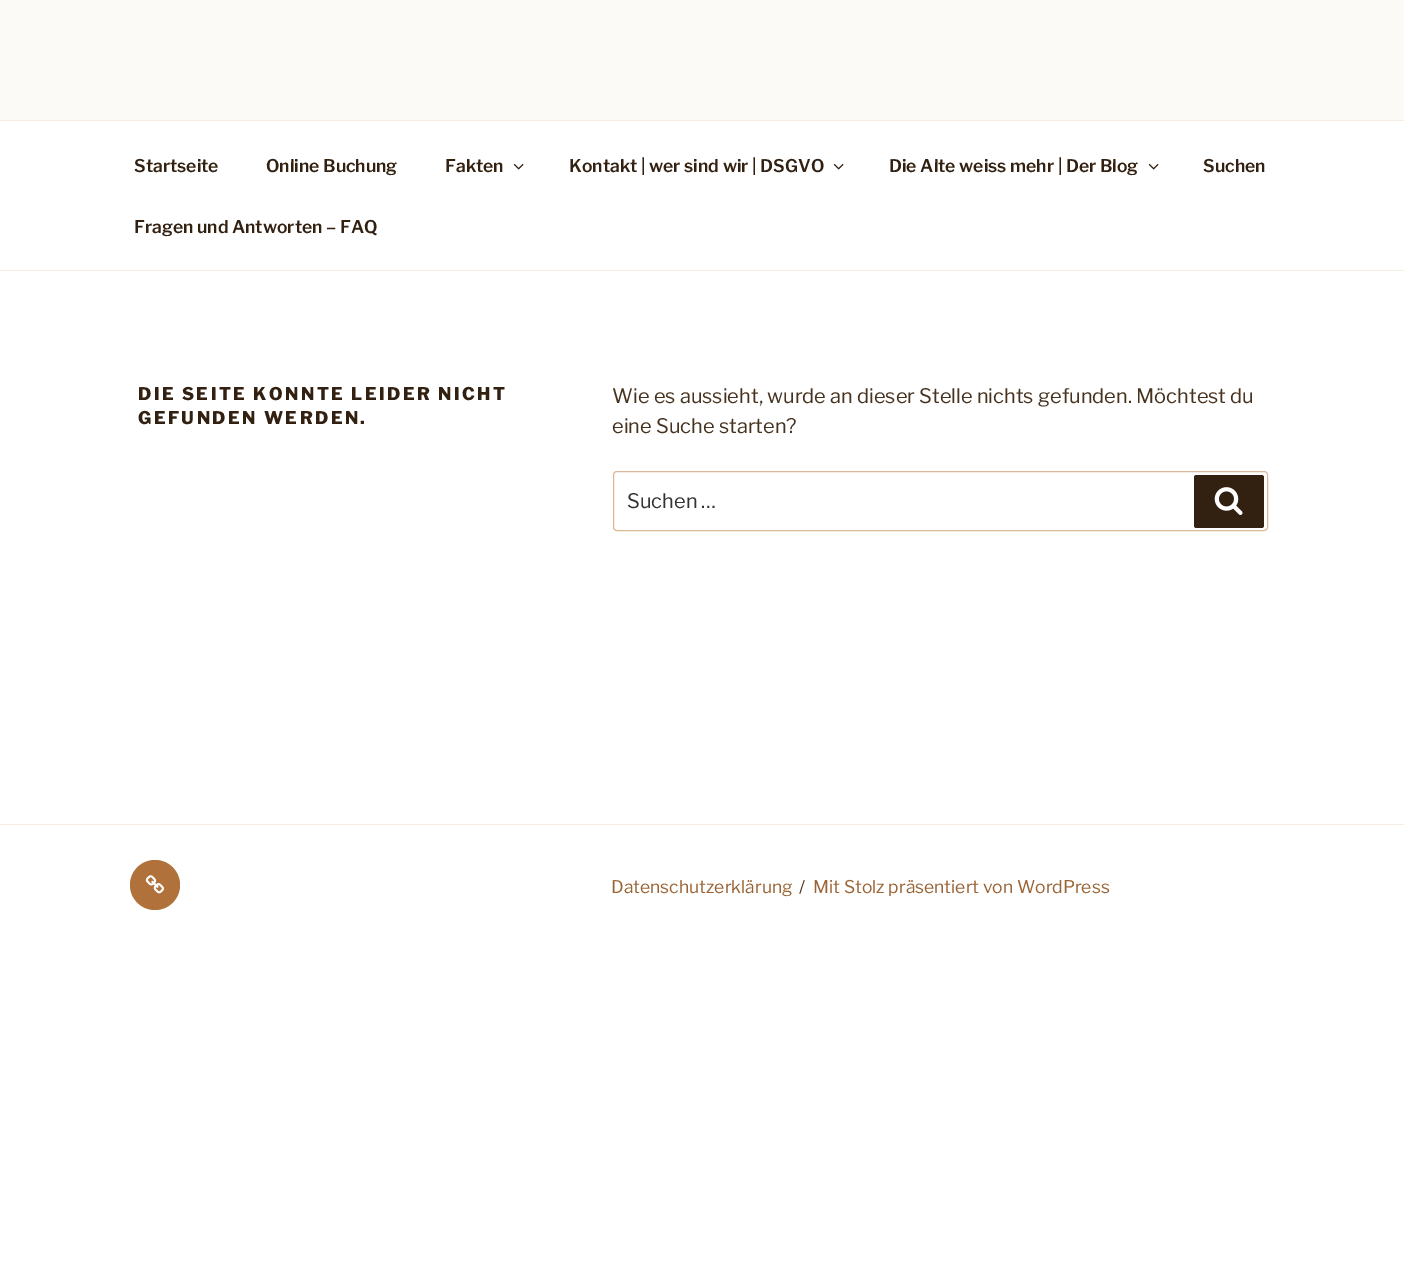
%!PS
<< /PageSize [1404 1279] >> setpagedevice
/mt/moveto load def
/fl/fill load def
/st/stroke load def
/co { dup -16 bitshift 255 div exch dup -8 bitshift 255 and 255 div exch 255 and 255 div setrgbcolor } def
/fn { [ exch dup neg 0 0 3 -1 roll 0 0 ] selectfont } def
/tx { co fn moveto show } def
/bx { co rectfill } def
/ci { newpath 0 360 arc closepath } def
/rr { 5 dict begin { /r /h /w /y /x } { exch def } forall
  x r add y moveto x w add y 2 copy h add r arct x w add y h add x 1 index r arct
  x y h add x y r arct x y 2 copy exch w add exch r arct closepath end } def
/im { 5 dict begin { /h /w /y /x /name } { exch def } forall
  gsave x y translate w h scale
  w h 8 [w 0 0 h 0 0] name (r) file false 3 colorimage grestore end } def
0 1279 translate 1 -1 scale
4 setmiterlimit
0 0 1404 1279 16#FFFFFF bx
0 0 1404 120 16#FCFAF7 bx
0 120 1404 1 16#F6EDE4 bx
0 270 1404 1 16#F6EDE4 bx
(media/1.raw) 513 163 11 7 im
(media/1.raw) 833 163 11 7 im
(media/1.raw) 1148 163 11 7 im
16#DDB898 co
613.5 471.5 654 59 3.5 rr st
16#322011 co
1194 475 70 53 2.5 rr fl
(media/2.raw) 1214 487 29 28 im
0 824 1404 1 16#F6EDE4 bx
16#B0713B co
155 885 25 ci fl
(media/3.raw) 145 875 19 19 im
(Startseite) 134 172 /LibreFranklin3-Thin 17.5 16#322011 tx
(Online Buchung) 266 172 /LibreFranklin3-Thin 17.5 16#322011 tx
(Fakten) 445 172 /LibreFranklin3-Thin 17.5 16#322011 tx
(Kontakt | wer sind wir | DSGVO) 569 172 /LibreFranklin3-Thin 17.5 16#322011 tx
(Die Alte weiss mehr | Der Blog) 889 172 /LibreFranklin3-Thin 17.5 16#322011 tx
(Suchen) 1203 172 /LibreFranklin3-Thin 17.5 16#322011 tx
(Fragen und Antworten – FAQ) 134 233 /LibreFranklin3-Thin 17.5 16#322011 tx
/LibreFranklin-Thin 17.5 fn
138 400 mt 2.45 0 (DIE SEITE KONNTE LEIDER NICHT) ashow
138 424 mt 2.45 0 (GEFUNDEN WERDEN.) ashow
(Wie es aussieht, wurde an dieser Stelle nichts gefunden. Möchtest du) 612 403 /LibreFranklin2-Thin 20 16#47321F tx
(eine Suche starten?) 612 433 /LibreFranklin2-Thin 20 16#47321F tx
(Suchen …) 627 508 /LibreFranklin2-Thin 20 16#333333 tx
(Datenschutzerklärung) 611 893 /LibreFranklin2-Thin 17.5 16#996333 tx
(/) 799 893 /LibreFranklin2-Thin 17.5 16#47321F tx
(Mit Stolz präsentiert von WordPress) 813 893 /LibreFranklin2-Thin 17.5 16#996333 tx
showpage
